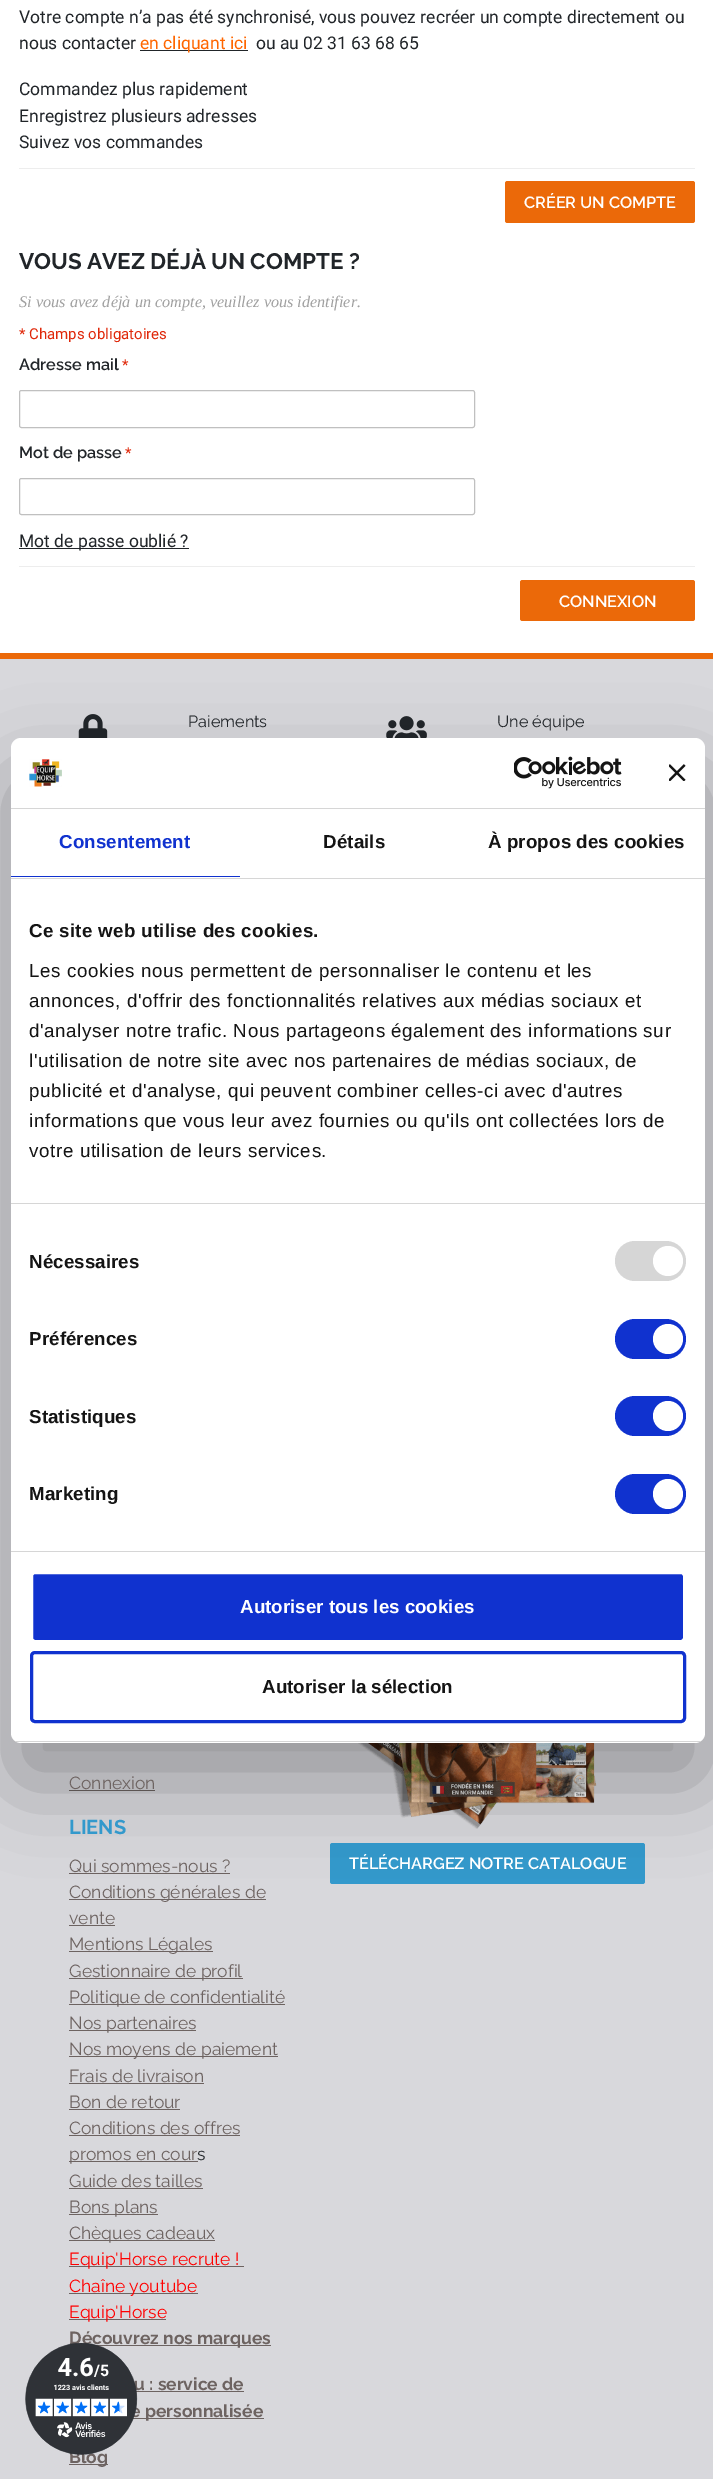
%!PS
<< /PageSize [713 2479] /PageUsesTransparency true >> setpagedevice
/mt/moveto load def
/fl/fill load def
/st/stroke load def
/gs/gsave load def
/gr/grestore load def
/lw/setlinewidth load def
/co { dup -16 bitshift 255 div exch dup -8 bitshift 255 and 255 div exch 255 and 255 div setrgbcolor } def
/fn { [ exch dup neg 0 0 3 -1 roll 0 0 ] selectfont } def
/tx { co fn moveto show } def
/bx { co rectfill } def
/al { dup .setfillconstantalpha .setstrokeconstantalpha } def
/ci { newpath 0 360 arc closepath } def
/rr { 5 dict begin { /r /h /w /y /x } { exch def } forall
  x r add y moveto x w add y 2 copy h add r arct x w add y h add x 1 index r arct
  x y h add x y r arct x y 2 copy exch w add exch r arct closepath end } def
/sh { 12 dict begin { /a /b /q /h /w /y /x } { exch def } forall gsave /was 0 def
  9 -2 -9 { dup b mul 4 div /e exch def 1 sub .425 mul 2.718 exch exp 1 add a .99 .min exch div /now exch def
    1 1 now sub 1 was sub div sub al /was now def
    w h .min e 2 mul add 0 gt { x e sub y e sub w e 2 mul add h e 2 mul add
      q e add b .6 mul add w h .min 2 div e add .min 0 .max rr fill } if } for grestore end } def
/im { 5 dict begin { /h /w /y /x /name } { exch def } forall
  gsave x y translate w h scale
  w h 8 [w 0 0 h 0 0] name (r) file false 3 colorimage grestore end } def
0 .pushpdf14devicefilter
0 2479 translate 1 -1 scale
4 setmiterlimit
0 0 713 2479 16#FFFFFF bx
140 50 108 1 16#212529 bx
19 168 676 1 16#EDEDED bx
16#EB6909 co
505 181 190 42 2.5 rr fl
16#C0C0C0 co
19.5 390.5 455 37 2 rr st
19.5 478.5 455 36 2 rr st
19 548 170 1 16#212529 bx
19 566 676 1 16#EDEDED bx
16#EB6909 co
520 580 175 41 2.5 rr fl
0 659 713 1820 16#D8D8DC bx
0 653 713 6 16#EB6909 bx
(media/1.raw) 78 714 30 24 im
(media/2.raw) 386 716 41 22 im
69 1790 86 1 16#6D6361 bx
69 1873 161 1 16#6D6361 bx
69 1899 197 1 16#6D6361 bx
69 1925 46 1 16#6D6361 bx
69 1951 144 1 16#6D6361 bx
69 1978 174 1 16#6D6361 bx
69 2004 216 1 16#6D6361 bx
69 2030 127 1 16#6D6361 bx
69 2056 209 1 16#6D6361 bx
69 2083 135 1 16#6D6361 bx
69 2109 111 1 16#6D6361 bx
69 2135 171 1 16#6D6361 bx
69 2161 129 1 16#6D6361 bx
69 2188 134 1 16#6D6361 bx
69 2214 89 1 16#6D6361 bx
69 2240 146 1 16#6D6361 bx
69 2266 175 1 16#6D6361 bx
69 2293 129 1 16#6D6361 bx
69 2319 97 1 16#6D6361 bx
95 2345 176 1 16#6D6361 bx
136 2391 108 1 16#6D6361 bx
133 2418 131 1 16#6D6361 bx
69 2464 39 1 16#6D6361 bx
(media/3.raw) 358 1743 239 86 im
16#3399CC co
330 1843 315 41 2.5 rr fl
16#000000 co
11 778 694 1005 10 42.5 .3 sh
16#FFFFFF co
11 738 694 1005 10 rr fl
11 808 694 1 16#D6D6D6 bx
(media/4.raw) 29 759 33 28 im
(media/5.raw) 514 756 108 33 im
(media/6.raw) 669 764 17 17 im
11 878 694 1 16#D6D6D6 bx
11 876 229 1 16#1032CF bx
11 1203 694 1 16#D6D6D6 bx
11 1551 694 1 16#D6D6D6 bx
615 1241 71 40 20 rr fl
16#FFFFFF co
668 1261 15 ci fl
16#1032CF co
615 1319 71 40 20 rr fl
16#FFFFFF co
668 1339 15 ci fl
16#1032CF co
615 1396 71 40 20 rr fl
16#FFFFFF co
668 1416 15 ci fl
16#1032CF co
615 1474 71 40 20 rr fl
16#FFFFFF co
668 1494 15 ci fl
gs
11 738 694 1005 10 rr clip newpath
11 1741 694 1 16#D6D6D6 bx
gr
16#1032CF co
31.5 1572.5 653 69 3.5 rr gs fl gr
16#FFFFFF co
3 lw
st
16#1032CF co
31.5 1652.5 653 69 3.5 rr st
(Votre compte n’a pas été synchronisé, vous pouvez recréer un compte directement ou) 19 23 /Roboto-Regular 17.5 16#212529 tx
(nous contacter) 19 49 /Roboto-Regular 17.5 16#212529 tx
(en cliquant ici) 140 49 /Roboto-Regular 17.5 16#FF6600 tx
(ou au 02 31 63 68 65) 256 49 /Roboto-Regular 17.5 16#212529 tx
(Commandez plus rapidement) 19 95 /Roboto-Regular 17.5 16#212529 tx
(Enregistrez plusieurs adresses) 19 122 /Roboto-Regular 17.5 16#212529 tx
(Suivez vos commandes) 19 148 /Roboto-Regular 17.5 16#212529 tx
(CRÉER UN COMPTE) 524 208 /Raleway-SemiBold 16.25 16#FFFFFF tx
(VOUS AVEZ DÉJÀ UN COMPTE ?) 19 269 /Raleway-Bold 22.4 16#212529 tx
(Si vous avez déjà un compte, veuillez vous identifier.) 19 307 /LiberationSerif-Italic 16.25 16#A0A0A0 tx
(* Champs obligatoires) 19 339 /Roboto-Regular 15 16#DF280A tx
(Adresse mail) 19 370 /Raleway-SemiBold 16.25 16#212529 tx
(*) 122 370 /Roboto-Regular 15 16#DF280A tx
(Mot de passe) 19 458 /Raleway-SemiBold 16.25 16#212529 tx
(*) 125 458 /Roboto-Regular 15 16#DF280A tx
(Mot de passe oublié ?) 19 547 /Roboto-Regular 17.5 16#212529 tx
(CONNEXION) 559 607 /Raleway-SemiBold 16.25 16#FFFFFF tx
(Paiements) 188 727 /Raleway-Regular 16.25 16#212529 tx
(Une équipe) 497 727 /Raleway-Regular 16.25 16#212529 tx
(Connexion) 69 1789 /Raleway-Regular 17.5 16#6D6361 tx
(LIENS) 69 1834 /Raleway-Bold 20 16#3399CC tx
(Qui sommes-nous ?) 69 1872 /Raleway-Regular 17.5 16#6D6361 tx
(Conditions générales de) 69 1898 /Raleway-Regular 17.5 16#6D6361 tx
(vente) 69 1924 /Raleway-Regular 17.5 16#6D6361 tx
(Mentions Légales) 69 1950 /Raleway-Regular 17.5 16#6D6361 tx
(Gestionnaire de profil) 69 1977 /Raleway-Regular 17.5 16#6D6361 tx
(Politique de confidentialité) 69 2003 /Raleway-Regular 17.5 16#6D6361 tx
(Nos partenaires) 69 2029 /Raleway-Regular 17.5 16#6D6361 tx
(Nos moyens de paiement) 69 2055 /Raleway-Regular 17.5 16#6D6361 tx
(Frais de livraison) 69 2082 /Raleway-Regular 17.5 16#6D6361 tx
(Bon de retour) 69 2108 /Raleway-Regular 17.5 16#6D6361 tx
(Conditions des offres) 69 2134 /Raleway-Regular 17.5 16#6D6361 tx
(promos en cour) 69 2160 /Raleway-Regular 17.5 16#6D6361 tx
(s) 197 2160 /Raleway-Regular 17.5 16#212529 tx
(Guide des tailles) 69 2187 /Raleway-Regular 17.5 16#6D6361 tx
(Bons plans) 69 2213 /Raleway-Regular 17.5 16#6D6361 tx
(Chèques cadeaux) 69 2239 /Raleway-Regular 17.5 16#6D6361 tx
(Equip'Horse recrute !) 69 2265 /Raleway-Regular 17.5 16#FF0000 tx
(Chaîne youtube) 69 2292 /Raleway-Regular 17.5 16#FF0000 tx
(Equip'Horse) 69 2318 /Raleway-Regular 17.5 16#FF0000 tx
(Découvrez nos marques) 69 2344 /Raleway-Bold 17.5 16#6D6361 tx
(u : service de) 134 2390 /Raleway-Bold 17.5 16#6D6361 tx
(e personnalisée) 130 2417 /Raleway-Bold 17.5 16#6D6361 tx
(Blog) 69 2463 /Raleway-Bold 17.5 16#6D6361 tx
(TÉLÉCHARGEZ NOTRE CATALOGUE) 349 1869 /Raleway-SemiBold 16.25 16#FFFFFF tx
/LiberationSans-Bold 18.75 fn
16#1032CF co
59 848 mt .1 0 (Consentement) ashow
16#141414 co
323 848 mt .1 0 (Détails) ashow
488 848 mt .1 0 (À propos des cookies) ashow
29 937 mt .3 0 (Ce site web utilise des cookies.) ashow
/LiberationSans-Regular 18.75 fn
29 977 mt .62 0 (Les cookies nous permettent de personnaliser le contenu et les) ashow
29 1007 mt .62 0 (annonces, d'offrir des fonctionnalités relatives aux médias sociaux et) ashow
29 1037 mt .62 0 (d'analyser notre trafic. Nous partageons également des informations sur) ashow
29 1067 mt .62 0 (l'utilisation de notre site avec nos partenaires de médias sociaux, de) ashow
29 1097 mt .62 0 (publicité et d'analyse, qui peuvent combiner celles-ci avec d'autres) ashow
29 1127 mt .62 0 (informations que vous leur avez fournies ou qu'ils ont collectées lors de) ashow
29 1157 mt .62 0 (votre utilisation de leurs services.) ashow
/LiberationSans-Bold 18.75 fn
29 1268 mt .1 0 (Nécessaires) ashow
29 1345 mt .1 0 (Préférences) ashow
29 1423 mt .1 0 (Statistiques) ashow
29 1500 mt .1 0 (Marketing) ashow
(Autoriser tous les cookies) 240 1613 /LiberationSans-Bold 18.75 16#FFFFFF tx
(Autoriser la sélection) 262 1693 /LiberationSans-Bold 18.75 16#141414 tx
(media/7.raw) 25 2343 113 112 im
.poppdf14devicefilter showpage
